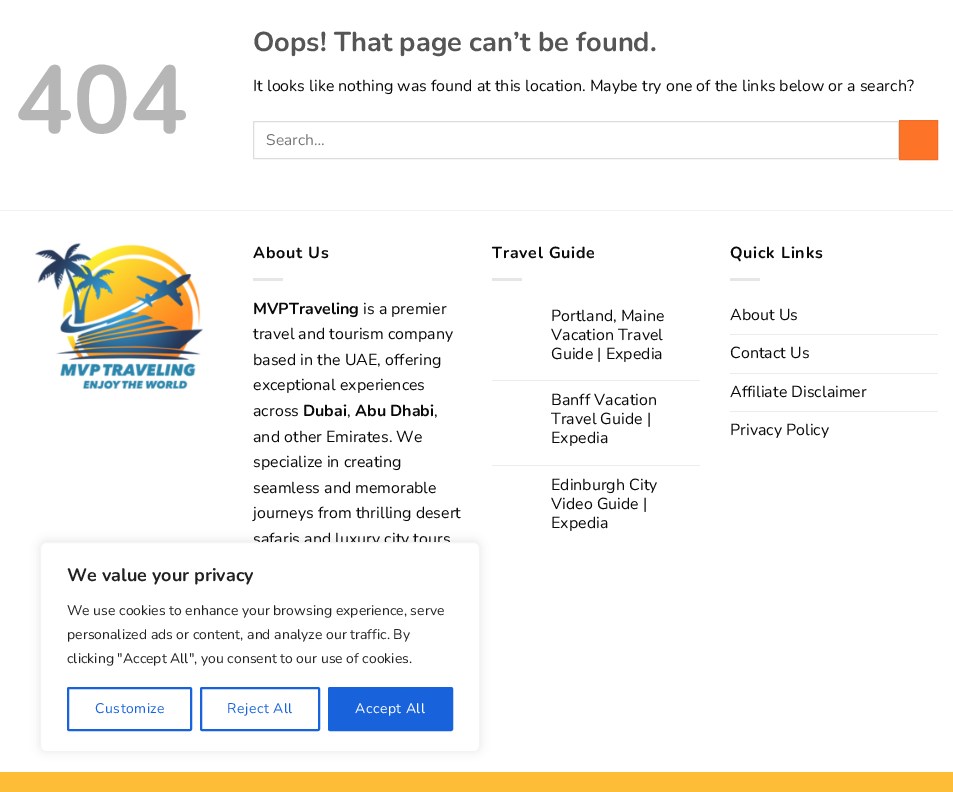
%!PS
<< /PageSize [953 792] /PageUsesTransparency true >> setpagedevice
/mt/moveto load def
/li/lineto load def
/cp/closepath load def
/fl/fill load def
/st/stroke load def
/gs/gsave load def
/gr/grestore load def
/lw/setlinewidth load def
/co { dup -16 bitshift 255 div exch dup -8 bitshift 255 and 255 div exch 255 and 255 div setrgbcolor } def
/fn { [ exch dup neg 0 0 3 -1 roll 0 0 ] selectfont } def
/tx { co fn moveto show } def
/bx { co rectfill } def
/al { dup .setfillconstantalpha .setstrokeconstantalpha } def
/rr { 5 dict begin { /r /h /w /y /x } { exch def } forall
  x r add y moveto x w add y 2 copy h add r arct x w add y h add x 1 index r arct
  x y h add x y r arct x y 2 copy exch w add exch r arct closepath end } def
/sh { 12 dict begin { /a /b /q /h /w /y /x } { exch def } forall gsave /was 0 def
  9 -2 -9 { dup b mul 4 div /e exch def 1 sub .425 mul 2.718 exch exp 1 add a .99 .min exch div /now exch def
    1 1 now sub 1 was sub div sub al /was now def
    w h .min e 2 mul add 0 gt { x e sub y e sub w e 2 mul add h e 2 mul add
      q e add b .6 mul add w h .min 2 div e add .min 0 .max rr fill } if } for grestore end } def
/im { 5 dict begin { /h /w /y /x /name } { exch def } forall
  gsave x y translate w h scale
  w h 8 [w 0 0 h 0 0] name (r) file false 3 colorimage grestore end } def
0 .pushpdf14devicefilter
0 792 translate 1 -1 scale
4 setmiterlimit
0 0 953 792 16#FFFFFF bx
16#DDDDDD co
253.5 121.5 645 37 rectstroke
16#FD7429 co
899.5 120.5 mt 937.5 120.5 li 937.5 159.5 li 899.5 159.5 li cp gs fl gr
16#F06E27 co
st
0 210 953 1 16#F2F2F2 bx
(media/1.raw) 35 243 168 146 im
253 278 30 3 16#E6E6E6 bx
492 278 30 3 16#E6E6E6 bx
492 380 208 1 16#ECECEC bx
492 465 208 1 16#ECECEC bx
730 278 30 3 16#E6E6E6 bx
730 334 208 1 16#ECECEC bx
730 373 208 1 16#ECECEC bx
730 411 208 1 16#ECECEC bx
0 772 953 20 16#FDBD36 bx
16#ACABAB co
40 541 440 210 6 5 .3 sh
(404) 15 133 /Nunito-Bold 96 16#B6B6B6 tx
(Oops! That page can’t be found.) 253 51 /Nunito-Bold 27.25 16#555555 tx
(It looks like nothing was found at this location. Maybe try one of the links below or a search?) 253 91 /Nunito-Regular 16 16#0A0A0A tx
(Search…) 266 145 /Nunito-Regular 15.5 16#757575 tx
/Nunito-Bold 16 fn
16#0A0A0A co
253 258 mt .75 0 (About Us) ashow
(MVPTraveling) 253 314 /Nunito-Bold 16 16#0A0A0A tx
(is a premier) 363 314 /Nunito-Regular 16 16#0A0A0A tx
(travel and tourism company) 253 339 /Nunito-Regular 16 16#0A0A0A tx
(based in the UAE, offering) 253 365 /Nunito-Regular 16 16#0A0A0A tx
(exceptional experiences) 253 390 /Nunito-Regular 16 16#0A0A0A tx
(across) 253 416 /Nunito-Regular 16 16#0A0A0A tx
(Dubai) 303 416 /Nunito-Bold 16 16#0A0A0A tx
(,) 347 416 /Nunito-Regular 16 16#0A0A0A tx
(Abu Dhabi) 355 416 /Nunito-Bold 16 16#0A0A0A tx
(,) 434 416 /Nunito-Regular 16 16#0A0A0A tx
(and other Emirates. We) 253 442 /Nunito-Regular 16 16#0A0A0A tx
(specialize in creating) 253 467 /Nunito-Regular 16 16#0A0A0A tx
(seamless and memorable) 253 493 /Nunito-Regular 16 16#0A0A0A tx
(journeys from thrilling desert) 253 518 /Nunito-Regular 16 16#0A0A0A tx
(safaris and luxury city tours) 253 544 /Nunito-Regular 16 16#0A0A0A tx
/Nunito-Bold 16 fn
492 258 mt .75 0 (Travel Guide) ashow
(Portland, Maine) 551 321 /Nunito-Regular 16 16#0A0A0A tx
(Vacation Travel) 551 340 /Nunito-Regular 16 16#0A0A0A tx
(Guide | Expedia) 551 359 /Nunito-Regular 16 16#0A0A0A tx
(Banff Vacation) 551 405 /Nunito-Regular 16 16#0A0A0A tx
(Travel Guide |) 551 424 /Nunito-Regular 16 16#0A0A0A tx
(Expedia) 551 443 /Nunito-Regular 16 16#0A0A0A tx
(Edinburgh City) 551 490 /Nunito-Regular 16 16#0A0A0A tx
(Video Guide |) 551 509 /Nunito-Regular 16 16#0A0A0A tx
(Expedia) 551 528 /Nunito-Regular 16 16#0A0A0A tx
/Nunito-Bold 16 fn
730 258 mt .75 0 (Quick Links) ashow
(About Us) 730 320 /Nunito-Regular 16 16#0A0A0A tx
(Contact Us) 730 358 /Nunito-Regular 16 16#0A0A0A tx
(Affiliate Disclaimer) 730 397 /Nunito-Regular 16 16#0A0A0A tx
(Privacy Policy) 730 435 /Nunito-Regular 16 16#0A0A0A tx
16#FFFFFF co
40.5 542.5 439 209 5.5 rr gs fl gr
16#F4F4F4 co
st
(We value your privacy) 67 581 /Nunito-Bold 18 16#212121 tx
(We use cookies to enhance your browsing experience, serve) 67 615 /Nunito-Regular 14 16#212121 tx
(personalized ads or content, and analyze our traffic. By) 67 639 /Nunito-Regular 14 16#212121 tx
(clicking "Accept All", you consent to our use of cookies.) 67 663 /Nunito-Regular 14 16#212121 tx
16#1863DC co
2 lw
68 688 123 42 1 rr st
95 713 mt .5 0 (Customize) ashow
201 688 118 42 1 rr st
227 713 mt .5 0 (Reject All) ashow
329 688 123 42 1 rr gs fl gr
st
16#FFFFFF co
355 713 mt .5 0 (Accept All) ashow
.poppdf14devicefilter showpage
